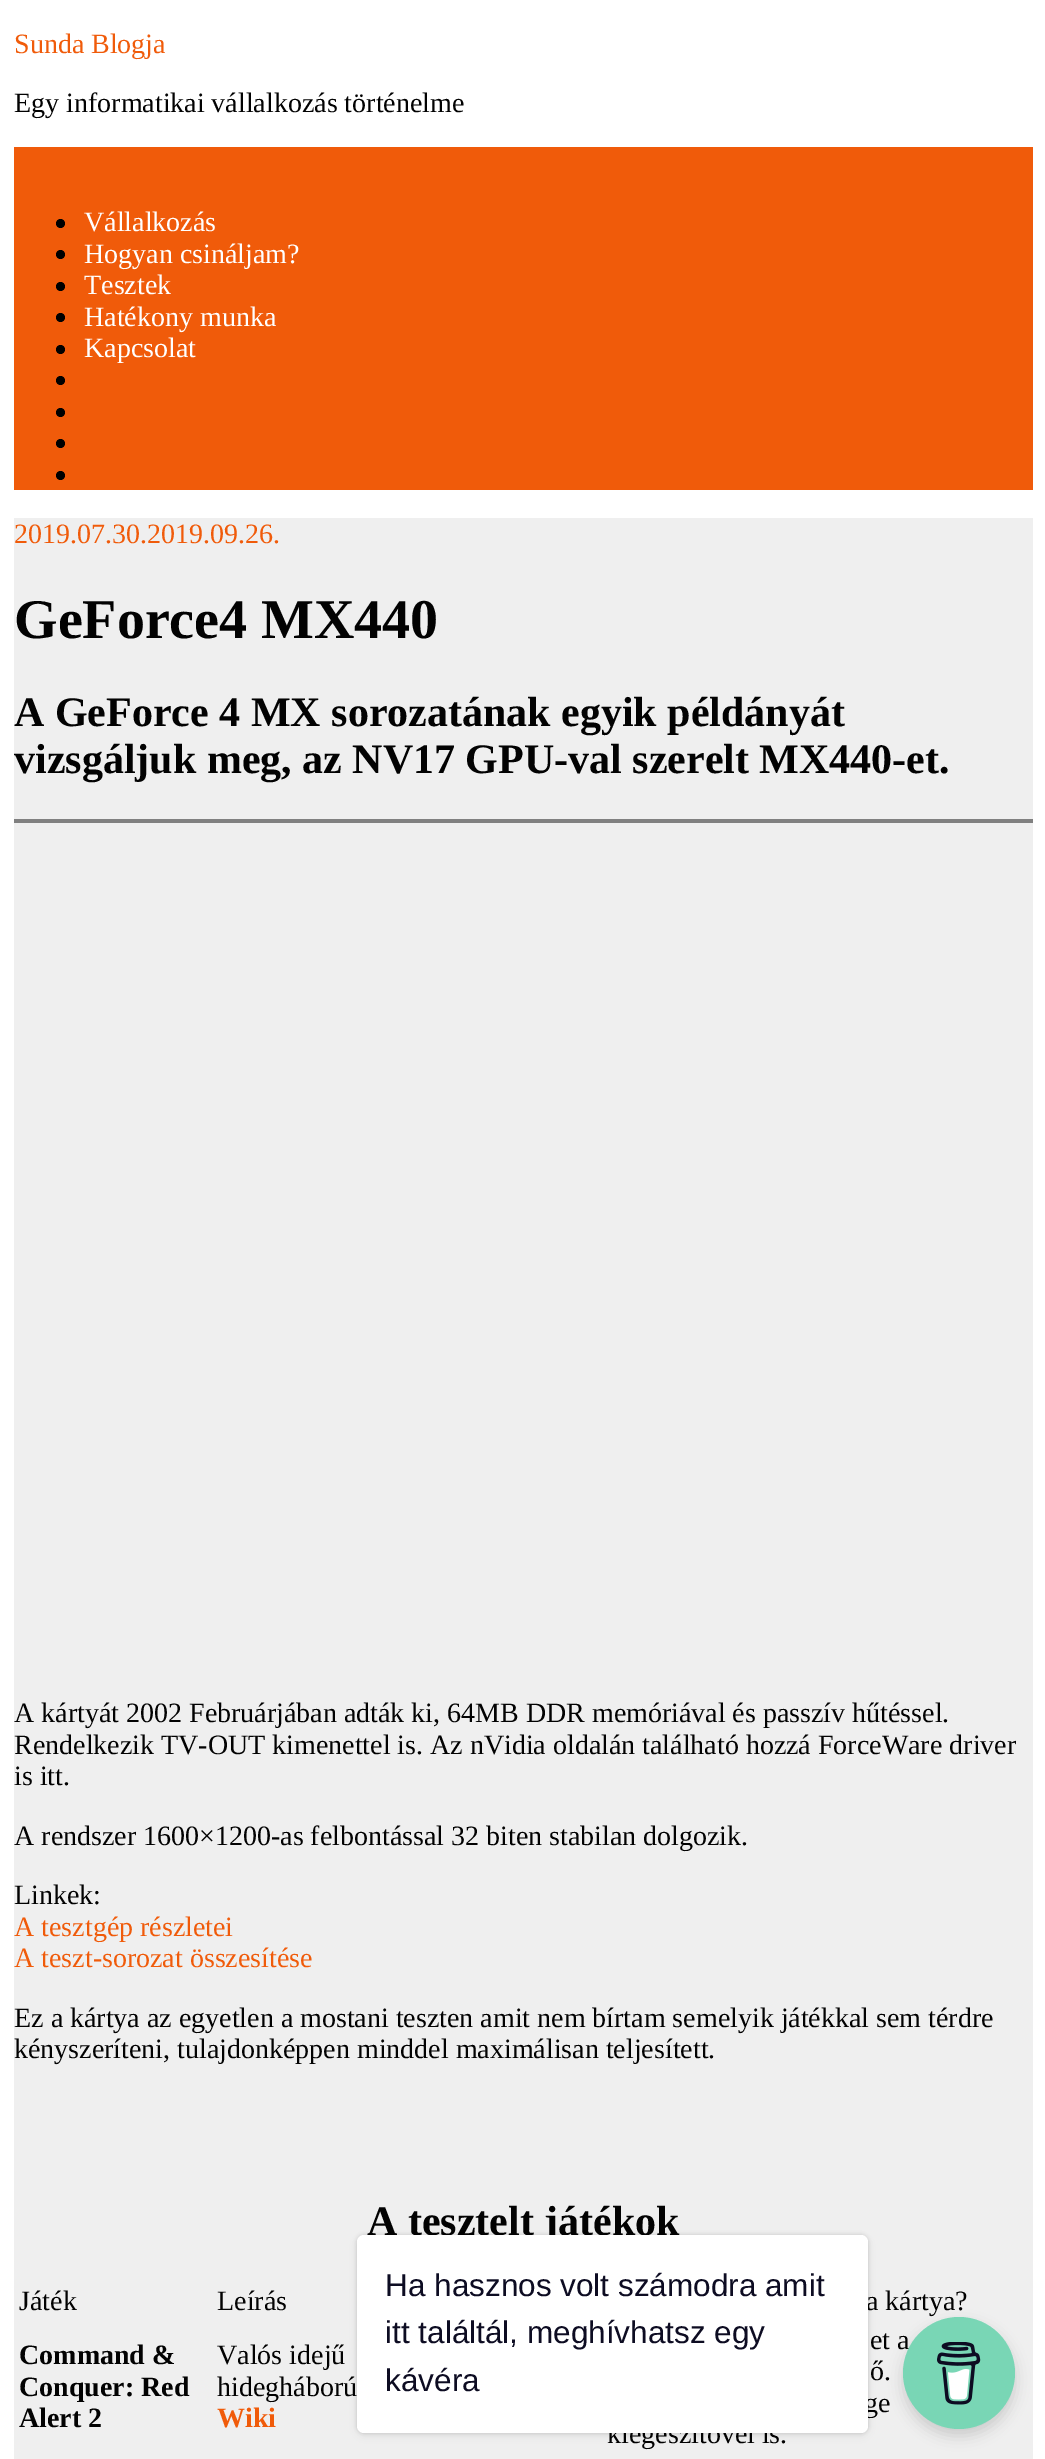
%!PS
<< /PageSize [1045 2459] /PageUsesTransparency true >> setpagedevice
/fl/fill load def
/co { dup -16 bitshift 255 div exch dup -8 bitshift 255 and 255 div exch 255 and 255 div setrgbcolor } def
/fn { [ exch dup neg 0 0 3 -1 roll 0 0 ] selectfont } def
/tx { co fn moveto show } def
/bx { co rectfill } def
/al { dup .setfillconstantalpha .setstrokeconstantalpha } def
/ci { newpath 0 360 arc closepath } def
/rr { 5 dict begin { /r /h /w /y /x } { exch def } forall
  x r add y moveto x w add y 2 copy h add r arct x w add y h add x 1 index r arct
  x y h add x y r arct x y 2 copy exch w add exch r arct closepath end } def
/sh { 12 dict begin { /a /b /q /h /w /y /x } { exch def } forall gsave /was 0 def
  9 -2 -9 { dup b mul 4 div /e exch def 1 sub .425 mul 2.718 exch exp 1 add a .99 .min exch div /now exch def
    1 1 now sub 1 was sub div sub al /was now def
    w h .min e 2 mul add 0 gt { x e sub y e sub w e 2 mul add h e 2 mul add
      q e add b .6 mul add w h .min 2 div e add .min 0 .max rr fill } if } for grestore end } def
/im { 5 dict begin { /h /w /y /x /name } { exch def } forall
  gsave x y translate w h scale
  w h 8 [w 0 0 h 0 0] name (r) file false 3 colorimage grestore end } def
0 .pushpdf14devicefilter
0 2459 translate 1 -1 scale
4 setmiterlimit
0 0 1045 2459 16#FFFFFF bx
14 147 1019 343 16#F05B0A bx
16#000000 co
60.5 223.5 4.5 ci fl
60.5 254.5 4.5 ci fl
60.5 286.5 4.5 ci fl
60.5 317.5 4.5 ci fl
60.5 349.5 4.5 ci fl
60.5 380.5 4.5 ci fl
60.5 412.5 4.5 ci fl
60.5 443.5 4.5 ci fl
60.5 475.5 4.5 ci fl
14 518 1019 1941 16#EFEFEF bx
14 819 1019 4 16#808080 bx
16#000000 co
357 2235 511 198 7 2 .15 sh
357 2238 511 198 7 4.5 .05 sh
903 2324 112 112 56 7 .15 sh
(Sunda Blogja) 14 53 /LiberationSerif-Regular 28 16#F05B0A tx
(Egy informatikai vállalkozás történelme) 14 112 /LiberationSerif-Regular 28 16#020202 tx
(Vállalkozás) 84 231 /LiberationSerif-Regular 28 16#FFFFFF tx
(Hogyan csináljam?) 84 263 /LiberationSerif-Regular 28 16#FFFFFF tx
(Tesztek) 84 294 /LiberationSerif-Regular 28 16#FFFFFF tx
(Hatékony munka) 84 326 /LiberationSerif-Regular 28 16#FFFFFF tx
(Kapcsolat) 84 357 /LiberationSerif-Regular 28 16#FFFFFF tx
(2019.07.30.2019.09.26.) 14 543 /LiberationSerif-Regular 28 16#F05B0A tx
(GeForce4 MX440) 14 638 /LiberationSerif-Bold 56 16#020202 tx
(A GeForce 4 MX sorozatának egyik példányát) 14 726 /LiberationSerif-Bold 42 16#020202 tx
(vizsgáljuk meg, az NV17 GPU-val szerelt MX440-et.) 14 773 /LiberationSerif-Bold 42 16#020202 tx
(A kártyát 2002 Februárjában adták ki, 64MB DDR memóriával és passzív hűtéssel.) 14 1722 /LiberationSerif-Regular 28 16#020202 tx
(Rendelkezik TV-OUT kimenettel is. Az nVidia oldalán található hozzá ForceWare driver) 14 1754 /LiberationSerif-Regular 28 16#020202 tx
(is itt.) 14 1785 /LiberationSerif-Regular 28 16#020202 tx
(A rendszer 1600×1200-as felbontással 32 biten stabilan dolgozik.) 14 1845 /LiberationSerif-Regular 28 16#020202 tx
(Linkek:) 14 1904 /LiberationSerif-Regular 28 16#020202 tx
(A tesztgép részletei) 14 1936 /LiberationSerif-Regular 28 16#F05B0A tx
(A teszt-sorozat összesítése) 14 1967 /LiberationSerif-Regular 28 16#F05B0A tx
(Ez a kártya az egyetlen a mostani teszten amit nem bírtam semelyik játékkal sem térdre) 14 2027 /LiberationSerif-Regular 28 16#020202 tx
(kényszeríteni, tulajdonképpen minddel maximálisan teljesített.) 14 2058 /LiberationSerif-Regular 28 16#020202 tx
(A tesztelt játékok) 367 2235 /LiberationSerif-Bold 42 16#020202 tx
(Játék) 19 2310 /LiberationSerif-Regular 28 16#020202 tx
(Leírás) 217 2310 /LiberationSerif-Regular 28 16#020202 tx
(a kártya?) 866 2310 /LiberationSerif-Regular 28 16#020202 tx
(Command &) 19 2364 /LiberationSerif-Bold 28 16#020202 tx
(Conquer: Red) 19 2396 /LiberationSerif-Bold 28 16#020202 tx
(Alert 2) 19 2427 /LiberationSerif-Bold 28 16#020202 tx
(Valós idejű) 217 2364 /LiberationSerif-Regular 28 16#020202 tx
(hidegháború) 217 2396 /LiberationSerif-Regular 28 16#020202 tx
(Wiki) 217 2427 /LiberationSerif-Bold 28 16#F05B0A tx
(et a) 870 2349 /LiberationSerif-Regular 28 16#020202 tx
(ő.) 870 2380 /LiberationSerif-Regular 28 16#020202 tx
(ge) 864 2412 /LiberationSerif-Regular 28 16#020202 tx
(kiegészítővel is.) 607 2443 /LiberationSerif-Regular 28 16#020202 tx
16#FFFFFF co
357 2235 511 198 7 rr fl
(Ha hasznos volt számodra amit) 385 2296 /LiberationSans-Regular 31.5 16#0D0C22 tx
(itt találtál, meghívhatsz egy) 385 2343 /LiberationSans-Regular 31.5 16#0D0C22 tx
(kávéra) 385 2391 /LiberationSans-Regular 31.5 16#0D0C22 tx
16#79D6B5 co
959 2373 56 ci fl
(media/1.raw) 937 2342 44 63 im
.poppdf14devicefilter showpage
